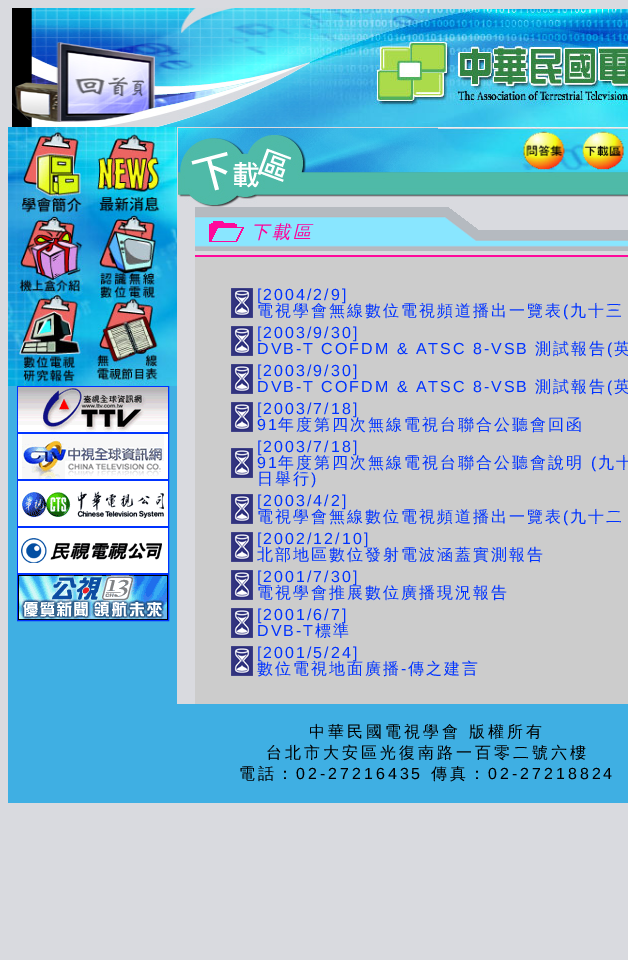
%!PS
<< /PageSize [628 960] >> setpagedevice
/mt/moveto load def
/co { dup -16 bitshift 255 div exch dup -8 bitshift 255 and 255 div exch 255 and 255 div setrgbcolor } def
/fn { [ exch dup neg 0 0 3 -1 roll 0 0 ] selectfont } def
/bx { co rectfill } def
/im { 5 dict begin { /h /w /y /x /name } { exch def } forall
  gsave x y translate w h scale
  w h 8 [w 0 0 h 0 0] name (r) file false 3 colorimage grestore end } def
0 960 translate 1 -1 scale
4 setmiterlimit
0 0 628 960 16#D9DADF bx
(media/1.raw) 12 8 298 119 im
(media/2.raw) 310 9 318 118 im
8 386 169 318 16#3FAFE3 bx
(media/3.raw) 8 127 169 259 im
16#0033FF co
17.5 386.5 151 46 rectstroke
(media/4.raw) 18 387 150 45 im
17.5 433.5 151 46 rectstroke
(media/5.raw) 18 434 150 45 im
17.5 480.5 151 46 rectstroke
(media/6.raw) 18 481 150 45 im
17.5 527.5 151 46 rectstroke
(media/7.raw) 18 528 150 45 im
17.5 574.5 151 46 rectstroke
(media/8.raw) 18 575 150 45 im
(media/9.raw) 178 128 260 44 im
(media/10.raw) 438 127 190 45 im
(media/11.raw) 178 172 260 35 im
(media/12.raw) 438 172 190 25 im
(media/13.raw) 195 207 433 50 im
195 257 433 447 16#CCCCCC bx
(media/14.raw) 231 288 22 30 im
(media/14.raw) 231 326 22 30 im
(media/14.raw) 231 364 22 30 im
(media/14.raw) 231 402 22 30 im
(media/14.raw) 231 448 22 30 im
(media/14.raw) 231 494 22 30 im
(media/14.raw) 231 532 22 30 im
(media/14.raw) 231 570 22 30 im
(media/14.raw) 231 608 22 30 im
(media/14.raw) 231 646 22 30 im
8 704 620 99 16#3FAFE3 bx
/WenQuanYiZenHei-MediumItalic 18 fn
16#FF0099 co
251 238 mt 3 0 (下載區) ashow
/LiberationSans-Regular 16 fn
16#0033FF co
257 300 mt 2 0 ([2004/2/9]) ashow
/WenQuanYiZenHei-Medium 16 fn
257 316 mt 2 0 (電視學會無線數位電視頻道播出一覽表) ashow
/LiberationSans-Regular 16 fn
563 316 mt 2 0 (\() ashow
/WenQuanYiZenHei-Medium 16 fn
570 316 mt 2 0 (九十三) ashow
/LiberationSans-Regular 16 fn
257 338 mt 2 0 ([2003/9/30]) ashow
257 354 mt 2 0 (DVB-T COFDM & ATSC 8-VSB) ashow
/WenQuanYiZenHei-Medium 16 fn
535 354 mt 2 0 (測試報告) ashow
/LiberationSans-Regular 16 fn
607 354 mt 2 0 (\() ashow
/WenQuanYiZenHei-Medium 16 fn
614 354 mt 2 0 (英) ashow
/LiberationSans-Regular 16 fn
257 376 mt 2 0 ([2003/9/30]) ashow
257 392 mt 2 0 (DVB-T COFDM & ATSC 8-VSB) ashow
/WenQuanYiZenHei-Medium 16 fn
535 392 mt 2 0 (測試報告) ashow
/LiberationSans-Regular 16 fn
607 392 mt 2 0 (\() ashow
/WenQuanYiZenHei-Medium 16 fn
614 392 mt 2 0 (英) ashow
/LiberationSans-Regular 16 fn
257 414 mt 2 0 ([2003/7/18]) ashow
257 430 mt 2 0 (91) ashow
/WenQuanYiZenHei-Medium 16 fn
278 430 mt 2 0 (年度第四次無線電視台聯合公聽會回函) ashow
/LiberationSans-Regular 16 fn
257 452 mt 2 0 ([2003/7/18]) ashow
257 468 mt 2 0 (91) ashow
/WenQuanYiZenHei-Medium 16 fn
278 468 mt 2 0 (年度第四次無線電視台聯合公聽會說明) ashow
/LiberationSans-Regular 16 fn
591 468 mt 2 0 (\() ashow
/WenQuanYiZenHei-Medium 16 fn
598 468 mt 2 0 (九十) ashow
257 484 mt 2 0 (日舉行) ashow
/LiberationSans-Regular 16 fn
311 484 mt 2 0 (\)) ashow
257 506 mt 2 0 ([2003/4/2]) ashow
/WenQuanYiZenHei-Medium 16 fn
257 522 mt 2 0 (電視學會無線數位電視頻道播出一覽表) ashow
/LiberationSans-Regular 16 fn
563 522 mt 2 0 (\() ashow
/WenQuanYiZenHei-Medium 16 fn
570 522 mt 2 0 (九十二) ashow
/LiberationSans-Regular 16 fn
257 544 mt 2 0 ([2002/12/10]) ashow
/WenQuanYiZenHei-Medium 16 fn
257 560 mt 2 0 (北部地區數位發射電波涵蓋實測報告) ashow
/LiberationSans-Regular 16 fn
257 582 mt 2 0 ([2001/7/30]) ashow
/WenQuanYiZenHei-Medium 16 fn
257 598 mt 2 0 (電視學會推展數位廣播現況報告) ashow
/LiberationSans-Regular 16 fn
257 620 mt 2 0 ([2001/6/7]) ashow
257 636 mt 2 0 (DVB-T) ashow
/WenQuanYiZenHei-Medium 16 fn
315 636 mt 2 0 (標準) ashow
/LiberationSans-Regular 16 fn
257 658 mt 2 0 ([2001/5/24]) ashow
/WenQuanYiZenHei-Medium 16 fn
257 674 mt 2 0 (數位電視地面廣播) ashow
/LiberationSans-Regular 16 fn
401 674 mt 2 0 (-) ashow
/WenQuanYiZenHei-Medium 16 fn
408 674 mt 2 0 (傳之建言) ashow
16#000000 co
309 737 mt 3 0 (中華民國電視學會 版權所有) ashow
266 758 mt 3 0 (台北市大安區光復南路一百零二號六樓) ashow
239 779 mt 3 0 (電話：) ashow
/LiberationSans-Regular 16 fn
296 779 mt 3 0 (02-27216435) ashow
/WenQuanYiZenHei-Medium 16 fn
431 779 mt 3 0 (傳真：) ashow
/LiberationSans-Regular 16 fn
488 779 mt 3 0 (02-27218824) ashow
showpage
